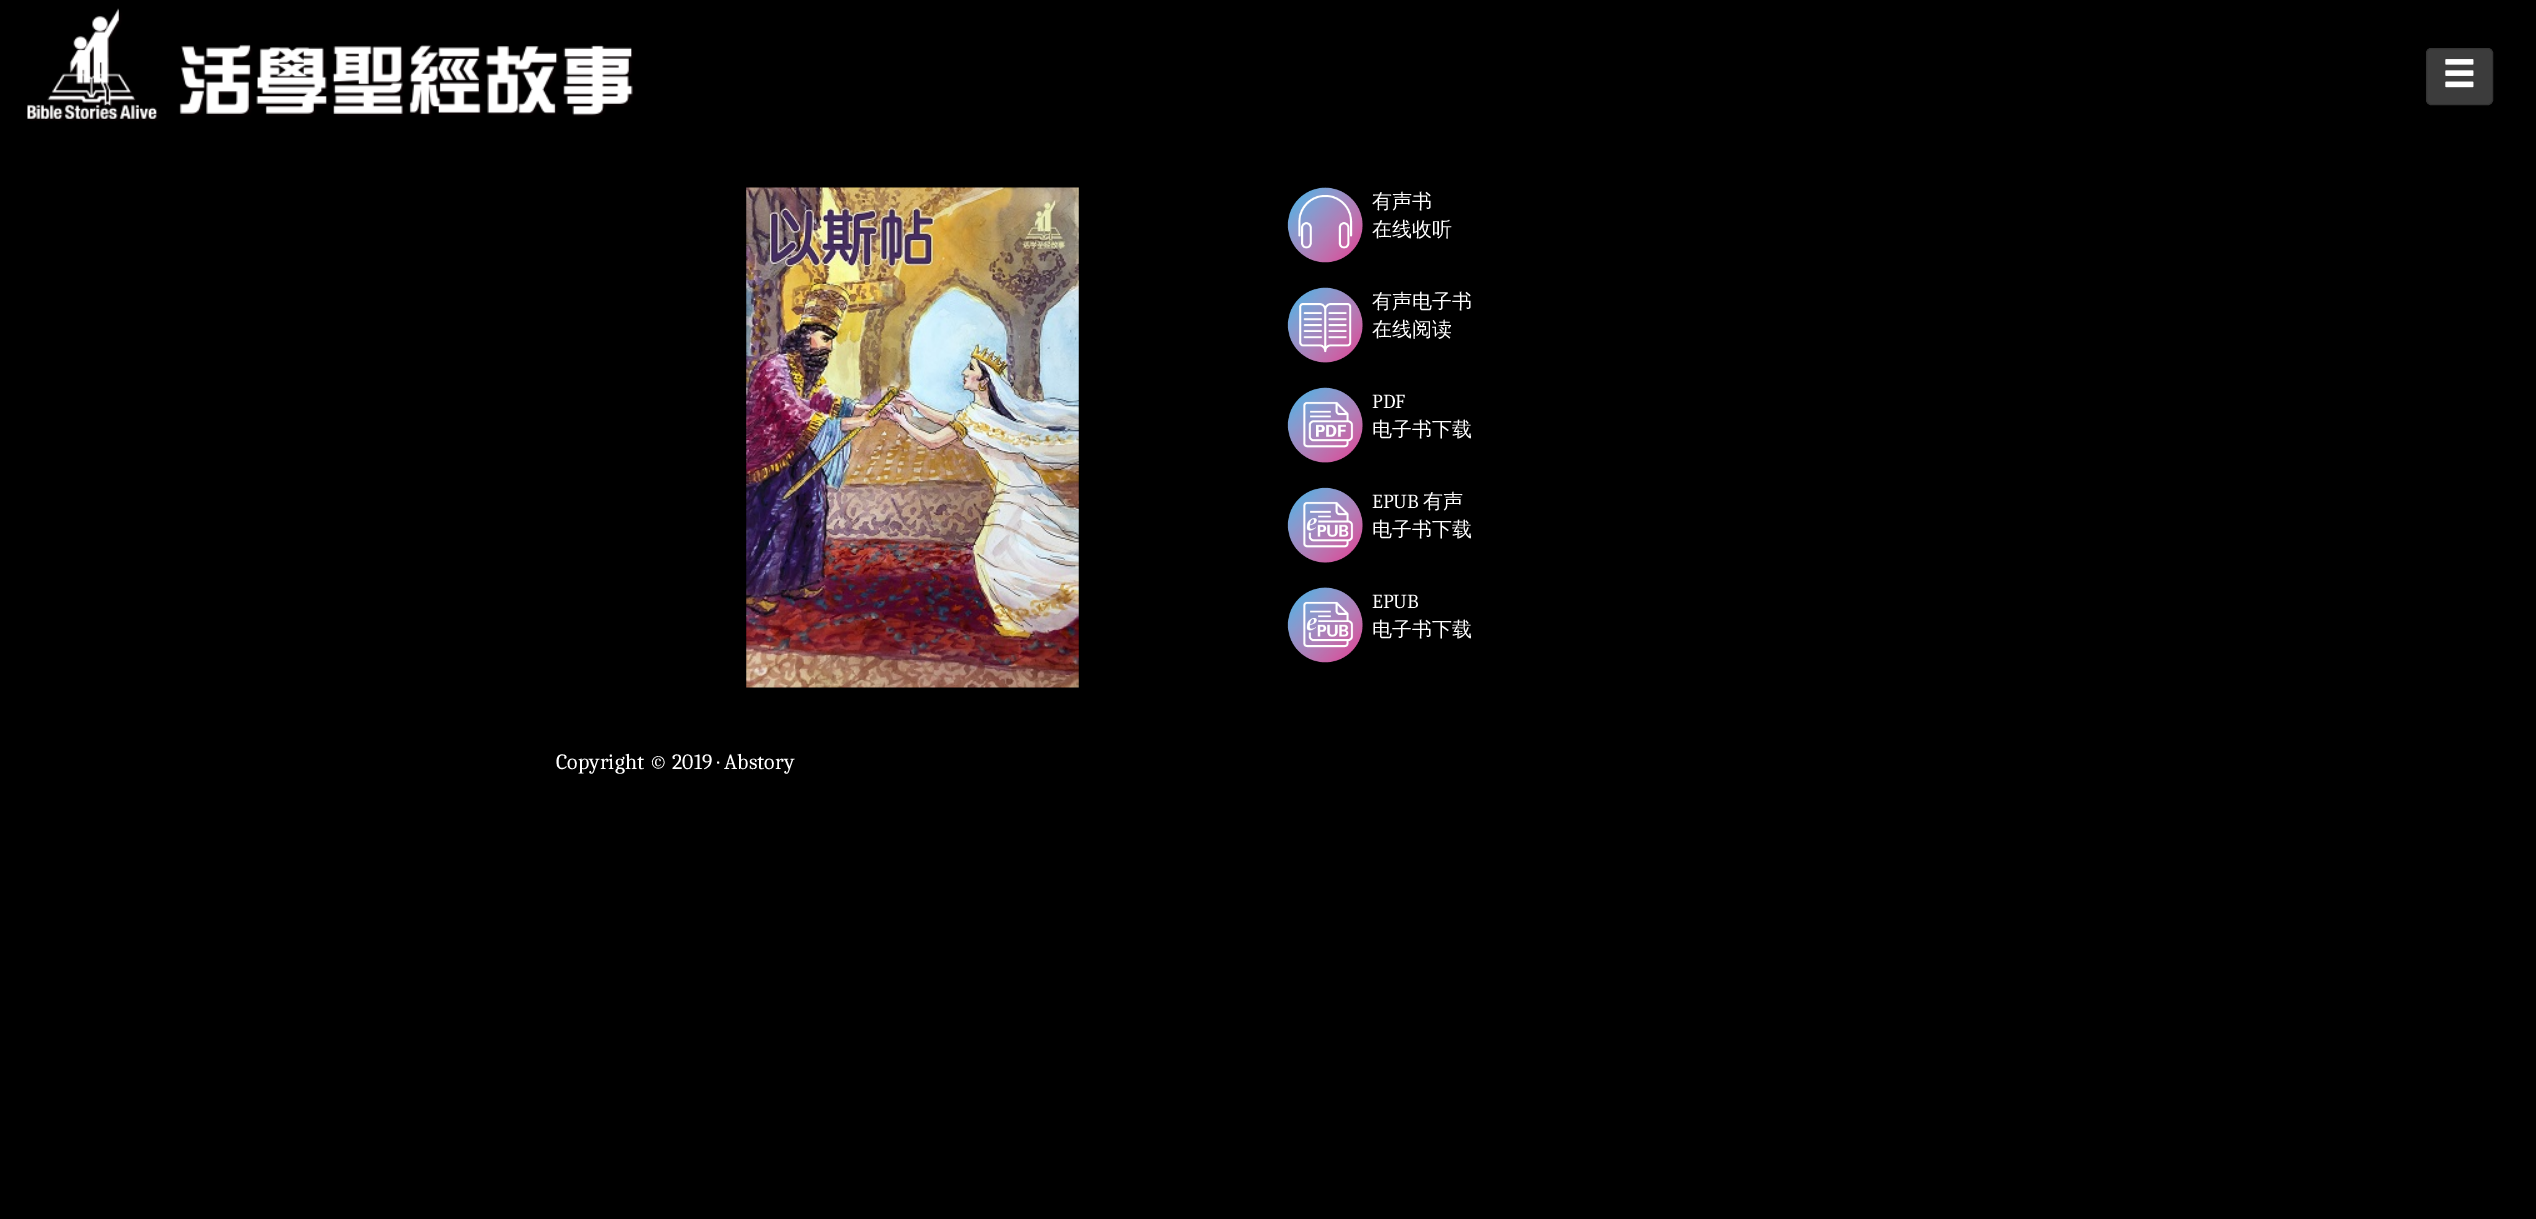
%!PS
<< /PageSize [2536 1219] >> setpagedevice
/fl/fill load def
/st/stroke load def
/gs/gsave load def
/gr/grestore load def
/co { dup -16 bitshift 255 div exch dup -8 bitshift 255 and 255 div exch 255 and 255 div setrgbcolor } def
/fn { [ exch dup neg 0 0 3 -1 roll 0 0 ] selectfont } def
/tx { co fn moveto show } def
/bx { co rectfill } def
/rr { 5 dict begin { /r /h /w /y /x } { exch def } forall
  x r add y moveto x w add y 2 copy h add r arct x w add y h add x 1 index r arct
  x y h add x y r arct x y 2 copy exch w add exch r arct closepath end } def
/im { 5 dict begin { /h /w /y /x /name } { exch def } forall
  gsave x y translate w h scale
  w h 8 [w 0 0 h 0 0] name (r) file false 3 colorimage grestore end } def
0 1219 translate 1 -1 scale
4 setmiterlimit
0 0 2536 1219 16#000000 bx
(media/1.raw) 27 8 607 113 im
16#3C3C3C co
2426.5 48.5 66 56 4.5 rr gs fl gr
16#333333 co
st
(media/2.raw) 2445 59 29 29 im
(media/3.raw) 746 187 333 501 im
(media/4.raw) 1287 187 76 76 im
(media/5.raw) 1287 287 76 76 im
(media/6.raw) 1287 387 76 76 im
(media/7.raw) 1287 487 76 76 im
(media/8.raw) 1287 587 76 76 im
(有声书) 1372 208 /WenQuanYiZenHei-Medium 20 16#FFFFFF tx
(在线收听) 1372 236 /WenQuanYiZenHei-Medium 20 16#FFFFFF tx
(有声电子书) 1372 308 /WenQuanYiZenHei-Medium 20 16#FFFFFF tx
(在线阅读) 1372 336 /WenQuanYiZenHei-Medium 20 16#FFFFFF tx
(PDF) 1372 408 /Caladea-Regular 20 16#FFFFFF tx
(电子书下载) 1372 436 /WenQuanYiZenHei-Medium 20 16#FFFFFF tx
(EPUB) 1372 508 /Caladea-Regular 20 16#FFFFFF tx
(有声) 1423 508 /WenQuanYiZenHei-Medium 20 16#FFFFFF tx
(电子书下载) 1372 536 /WenQuanYiZenHei-Medium 20 16#FFFFFF tx
(EPUB) 1372 608 /Caladea-Regular 20 16#FFFFFF tx
(电子书下载) 1372 636 /WenQuanYiZenHei-Medium 20 16#FFFFFF tx
(Copyright © 2019 · Abstory) 556 769 /Caladea-Regular 21.9 16#FFFFFF tx
showpage
